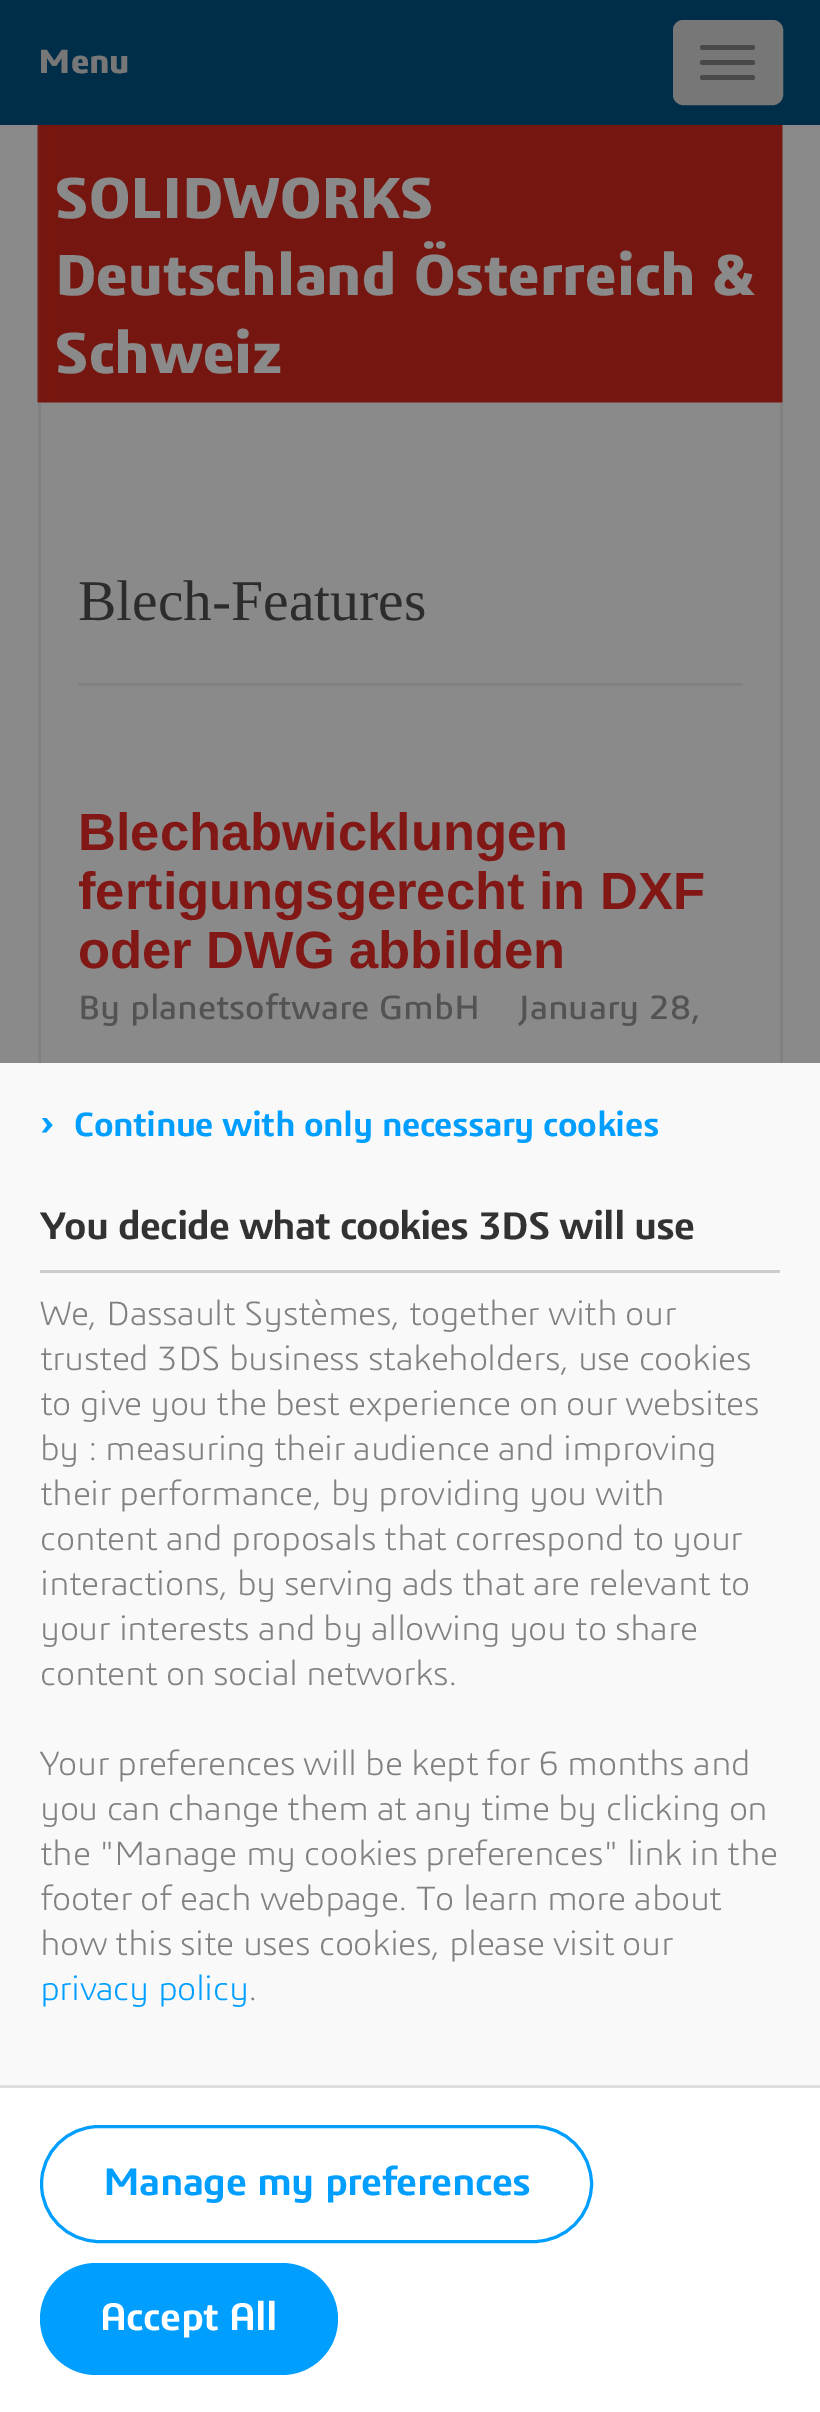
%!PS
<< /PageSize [820 2412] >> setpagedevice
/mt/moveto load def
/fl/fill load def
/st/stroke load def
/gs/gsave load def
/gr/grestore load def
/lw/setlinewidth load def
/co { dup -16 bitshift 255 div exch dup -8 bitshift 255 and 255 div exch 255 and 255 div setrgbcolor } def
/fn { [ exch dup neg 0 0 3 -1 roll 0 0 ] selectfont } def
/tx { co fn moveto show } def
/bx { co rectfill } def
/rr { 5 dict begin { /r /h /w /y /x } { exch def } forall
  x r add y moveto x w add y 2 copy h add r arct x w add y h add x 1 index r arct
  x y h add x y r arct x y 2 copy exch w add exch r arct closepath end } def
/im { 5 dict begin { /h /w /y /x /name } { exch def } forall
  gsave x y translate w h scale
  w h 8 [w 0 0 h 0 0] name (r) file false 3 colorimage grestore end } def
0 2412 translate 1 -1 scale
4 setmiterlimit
0 0 820 2412 16#8A8A8A bx
0 0 820 125 16#002E48 bx
16#777777 co
674.5 21.5 107 82 8.5 rr gs fl gr
3 lw
st
16#494949 co
700 45 55 5 2.5 rr fl
700 60 55 5 2.5 rr fl
700 75 55 5 2.5 rr fl
(media/1.raw) 37 125 746 278 im
780 403 3 660 16#818181 bx
38 403 3 660 16#818181 bx
78 683 665 3 16#818181 bx
0 1063 820 1022 16#F9F9F9 bx
40 1270 740 3 16#CCCCCC bx
0 2088 820 324 16#FFFFFF bx
0 2085 820 3 16#DEDEDE bx
16#009EFF co
41.5 2126.5 550 115 57.5 rr st
40 2263 298 112 56 rr fl
(Menu) 38 73 /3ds-Bold 35 16#777777 tx
(SOLIDWORKS) 55 218 /3ds-Bold 60 16#8A8A8A tx
(Deutschland Österreich &) 55 295 /3ds-Bold 60 16#8A8A8A tx
(Schweiz) 55 373 /3ds-Bold 60 16#8A8A8A tx
(Blech-Features) 78 620 /LiberationSerif-Regular 57.5 16#2C2C2C tx
(Blechabwicklungen) 78 850 /LiberationSans-Bold 52.5 16#821816 tx
(fertigungsgerecht in DXF) 78 909 /LiberationSans-Bold 52.5 16#821816 tx
(oder DWG abbilden) 78 968 /LiberationSans-Bold 52.5 16#821816 tx
(By planetsoftware GmbH) 78 1019 /3ds-Regular 35 16#535353 tx
(January 28,) 519 1019 /3ds-Regular 35 16#535353 tx
/3ds-SemiBold 40 fn
16#009EFF co
40 1136 mt -.5 0 (›) ashow
/3ds-SemiBold 35 fn
74 1136 mt -.5 0 (Continue with only necessary cookies) ashow
/3ds-SemiBold 40 fn
16#323232 co
40 1239 mt -1 0 (You decide what cookies 3DS will use) ashow
/3ds-Light 35 fn
16#818181 co
40 1325 mt -.4 0 (We, Dassault Systèmes, together with our) ashow
40 1370 mt -.4 0 (trusted 3DS business stakeholders, use cookies) ashow
40 1415 mt -.4 0 (to give you the best experience on our websites) ashow
40 1460 mt -.4 0 (by : measuring their audience and improving) ashow
40 1505 mt -.4 0 (their performance, by providing you with) ashow
40 1550 mt -.4 0 (content and proposals that correspond to your) ashow
40 1595 mt -.4 0 (interactions, by serving ads that are relevant to) ashow
40 1640 mt -.4 0 (your interests and by allowing you to share) ashow
40 1685 mt -.4 0 (content on social networks.) ashow
40 1775 mt -.4 0 (Your preferences will be kept for 6 months and) ashow
40 1820 mt -.4 0 (you can change them at any time by clicking on) ashow
40 1865 mt -.4 0 (the "Manage my cookies preferences" link in the) ashow
40 1910 mt -.4 0 (footer of each webpage. To learn more about) ashow
40 1955 mt -.4 0 (how this site uses cookies, please visit our) ashow
16#009EFF co
40 2000 mt -.4 0 (privacy policy) ashow
16#818181 co
248 2000 mt -.4 0 (.) ashow
/3ds-SemiBold 40 fn
16#009EFF co
103 2195 mt -.5 0 (Manage my preferences) ashow
16#FFFFFF co
100 2330 mt -.5 0 (Accept All) ashow
showpage
